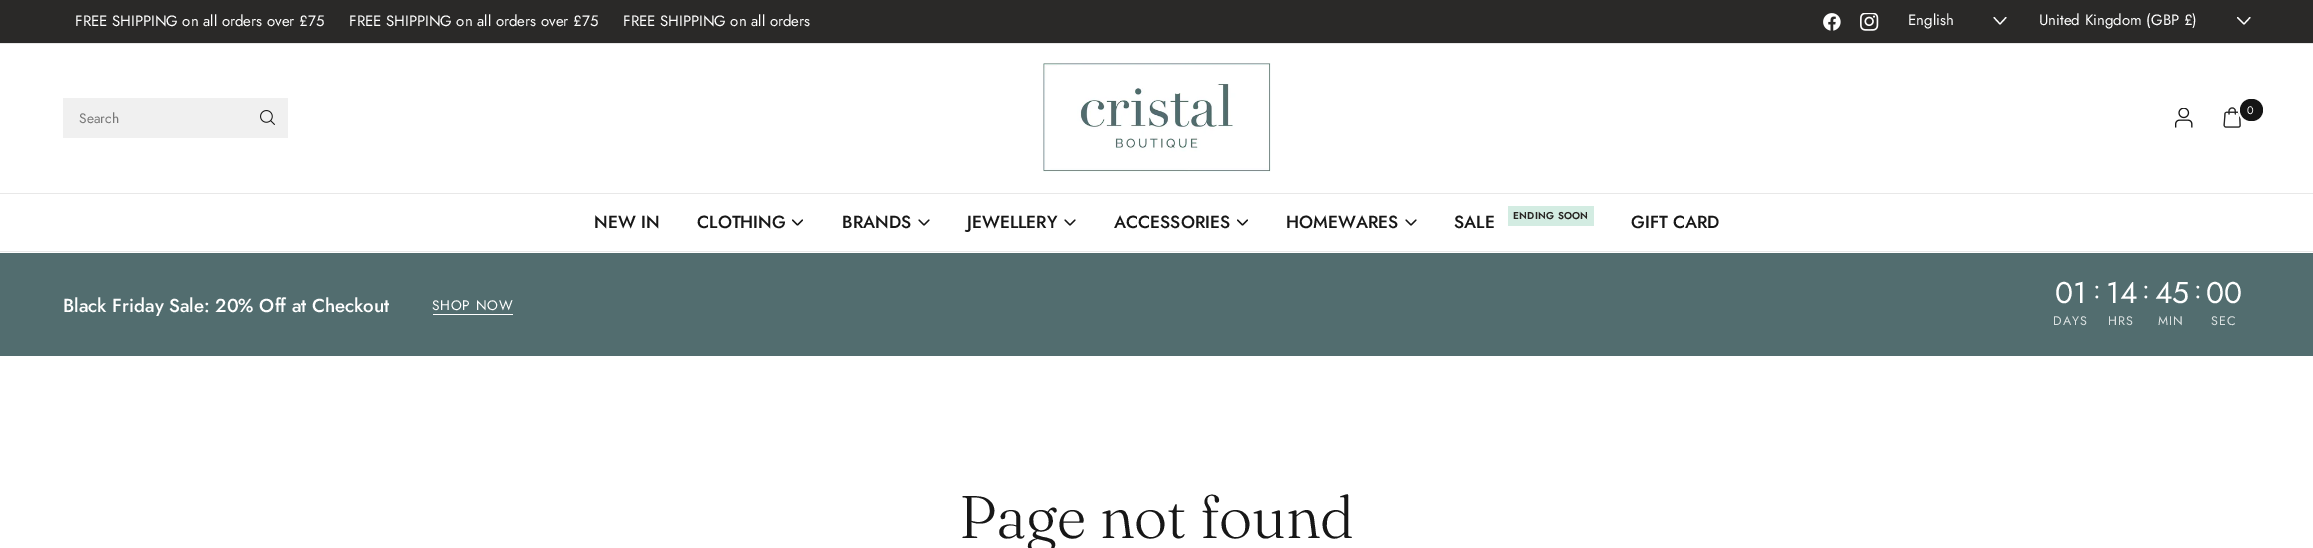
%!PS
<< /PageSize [2313 548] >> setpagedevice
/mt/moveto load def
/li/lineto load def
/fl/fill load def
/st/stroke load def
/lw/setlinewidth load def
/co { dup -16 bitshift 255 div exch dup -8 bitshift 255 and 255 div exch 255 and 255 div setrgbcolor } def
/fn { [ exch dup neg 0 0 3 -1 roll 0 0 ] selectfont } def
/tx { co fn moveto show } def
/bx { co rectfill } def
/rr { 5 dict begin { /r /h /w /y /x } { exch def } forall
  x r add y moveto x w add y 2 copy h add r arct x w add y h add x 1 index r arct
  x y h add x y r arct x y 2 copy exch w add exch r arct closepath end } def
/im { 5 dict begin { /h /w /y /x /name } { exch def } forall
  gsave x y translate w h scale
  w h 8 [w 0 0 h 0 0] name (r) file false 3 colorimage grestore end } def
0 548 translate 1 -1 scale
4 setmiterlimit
0 0 2313 548 16#FFFFFF bx
0 0 2313 43 16#2A2928 bx
(media/1.raw) 1823 13 18 18 im
(media/2.raw) 1860 13 19 18 im
16#FFFFFF co
1.2 lw
1 setlinecap
1 setlinejoin
2006 17.5 mt 2000 24 li 1994 17.5 li st
2250 17.5 mt 2244 24 li 2237.5 17.5 li st
0 251 2313 1 16#E8E8E8 bx
(media/3.raw) 1043 63 228 109 im
(media/4.raw) 2175 108 18 20 im
(media/5.raw) 2223 107 18 21 im
16#FFFFFF co
3 lw
0 setlinecap
0 setlinejoin
2239.5 97.5 24 25 12 rr st
16#151515 co
2240 99 23 22 11 rr fl
63 98 225 40 16#F0F0F0 bx
(media/6.raw) 260 110 15 15 im
0 193 2313 1 16#E8E8E8 bx
0 43 2313 1 16#E8E8E8 bx
16#151515 co
1.2 lw
1 setlinecap
1 setlinejoin
802.5 220 mt 797.5 225 li 792.5 220 li st
929 220 mt 924 225 li 919 220 li st
1075 220 mt 1070 225 li 1065 220 li st
1247.5 220 mt 1242.5 225 li 1237.5 220 li st
1416 220 mt 1411 225 li 1406 220 li st
1508 206 86 20 16#D3ECE2 bx
0 253 2313 103 16#526D6F bx
433 314 80 1 16#FFFFFF bx
(FREE SHIPPING on all orders over £75) 75 26 /Jost-Regular 15 16#FFFFFF tx
(FREE SHIPPING on all orders over £75) 349 26 /Jost-Regular 15 16#FFFFFF tx
(FREE SHIPPING on all orders) 623 26 /Jost-Regular 15 16#FFFFFF tx
(English) 1908 25 /Jost-Regular 15 16#FFFFFF tx
(United Kingdom \(GBP £\)) 2039 25 /Jost-Regular 15 16#FFFFFF tx
(0) 2247 114 /Jost-Regular 11 16#FFFFFF tx
(Search) 79 123 /Jost-Regular 13.75 16#777777 tx
(NEW IN) 594 228 /Jost-Medium 17.5 16#171717 tx
(CLOTHING) 697 228 /Jost-Medium 17.5 16#171717 tx
(BRANDS) 842 228 /Jost-Medium 17.5 16#171717 tx
(JEWELLERY) 967 228 /Jost-Medium 17.5 16#171717 tx
(ACCESSORIES) 1114 228 /Jost-Medium 17.5 16#171717 tx
(HOMEWARES) 1286 228 /Jost-Medium 17.5 16#171717 tx
(SALE) 1454 228 /Jost-Medium 17.5 16#171717 tx
/Jost-SemiBold 10 fn
16#272422 co
1513 219 mt .25 0 (ENDING SOON) ashow
(GIFT CARD) 1631 228 /Jost-Medium 17.5 16#171717 tx
(Black Friday Sale: 20% Off at Checkout) 63 312 /Jost-Medium 18.75 16#FFFFFF tx
/Jost-Regular 13.75 fn
432 310 mt .75 0 (SHOP NOW) ashow
(01) 2055 303 /Jost-Regular 30 16#FFFFFF tx
/Jost-Regular 12.5 fn
16#DCE2E2 co
2053 325 mt 1 0 (DAYS) ashow
(:) 2093 298 /Jost-Regular 26 16#FFFFFF tx
(14) 2106 303 /Jost-Regular 30 16#FFFFFF tx
/Jost-Regular 12.5 fn
16#DCE2E2 co
2108 325 mt 1 0 (HRS) ashow
(:) 2142 298 /Jost-Regular 26 16#FFFFFF tx
(45) 2155 303 /Jost-Regular 30 16#FFFFFF tx
/Jost-Regular 12.5 fn
16#DCE2E2 co
2158 325 mt 1 0 (MIN) ashow
(:) 2194 298 /Jost-Regular 26 16#FFFFFF tx
(00) 2206 303 /Jost-Regular 30 16#FFFFFF tx
/Jost-Regular 12.5 fn
16#DCE2E2 co
2211 325 mt 1 0 (SEC) ashow
(Page not found) 959 538 /Fraunces-Light 60 16#171717 tx
showpage
